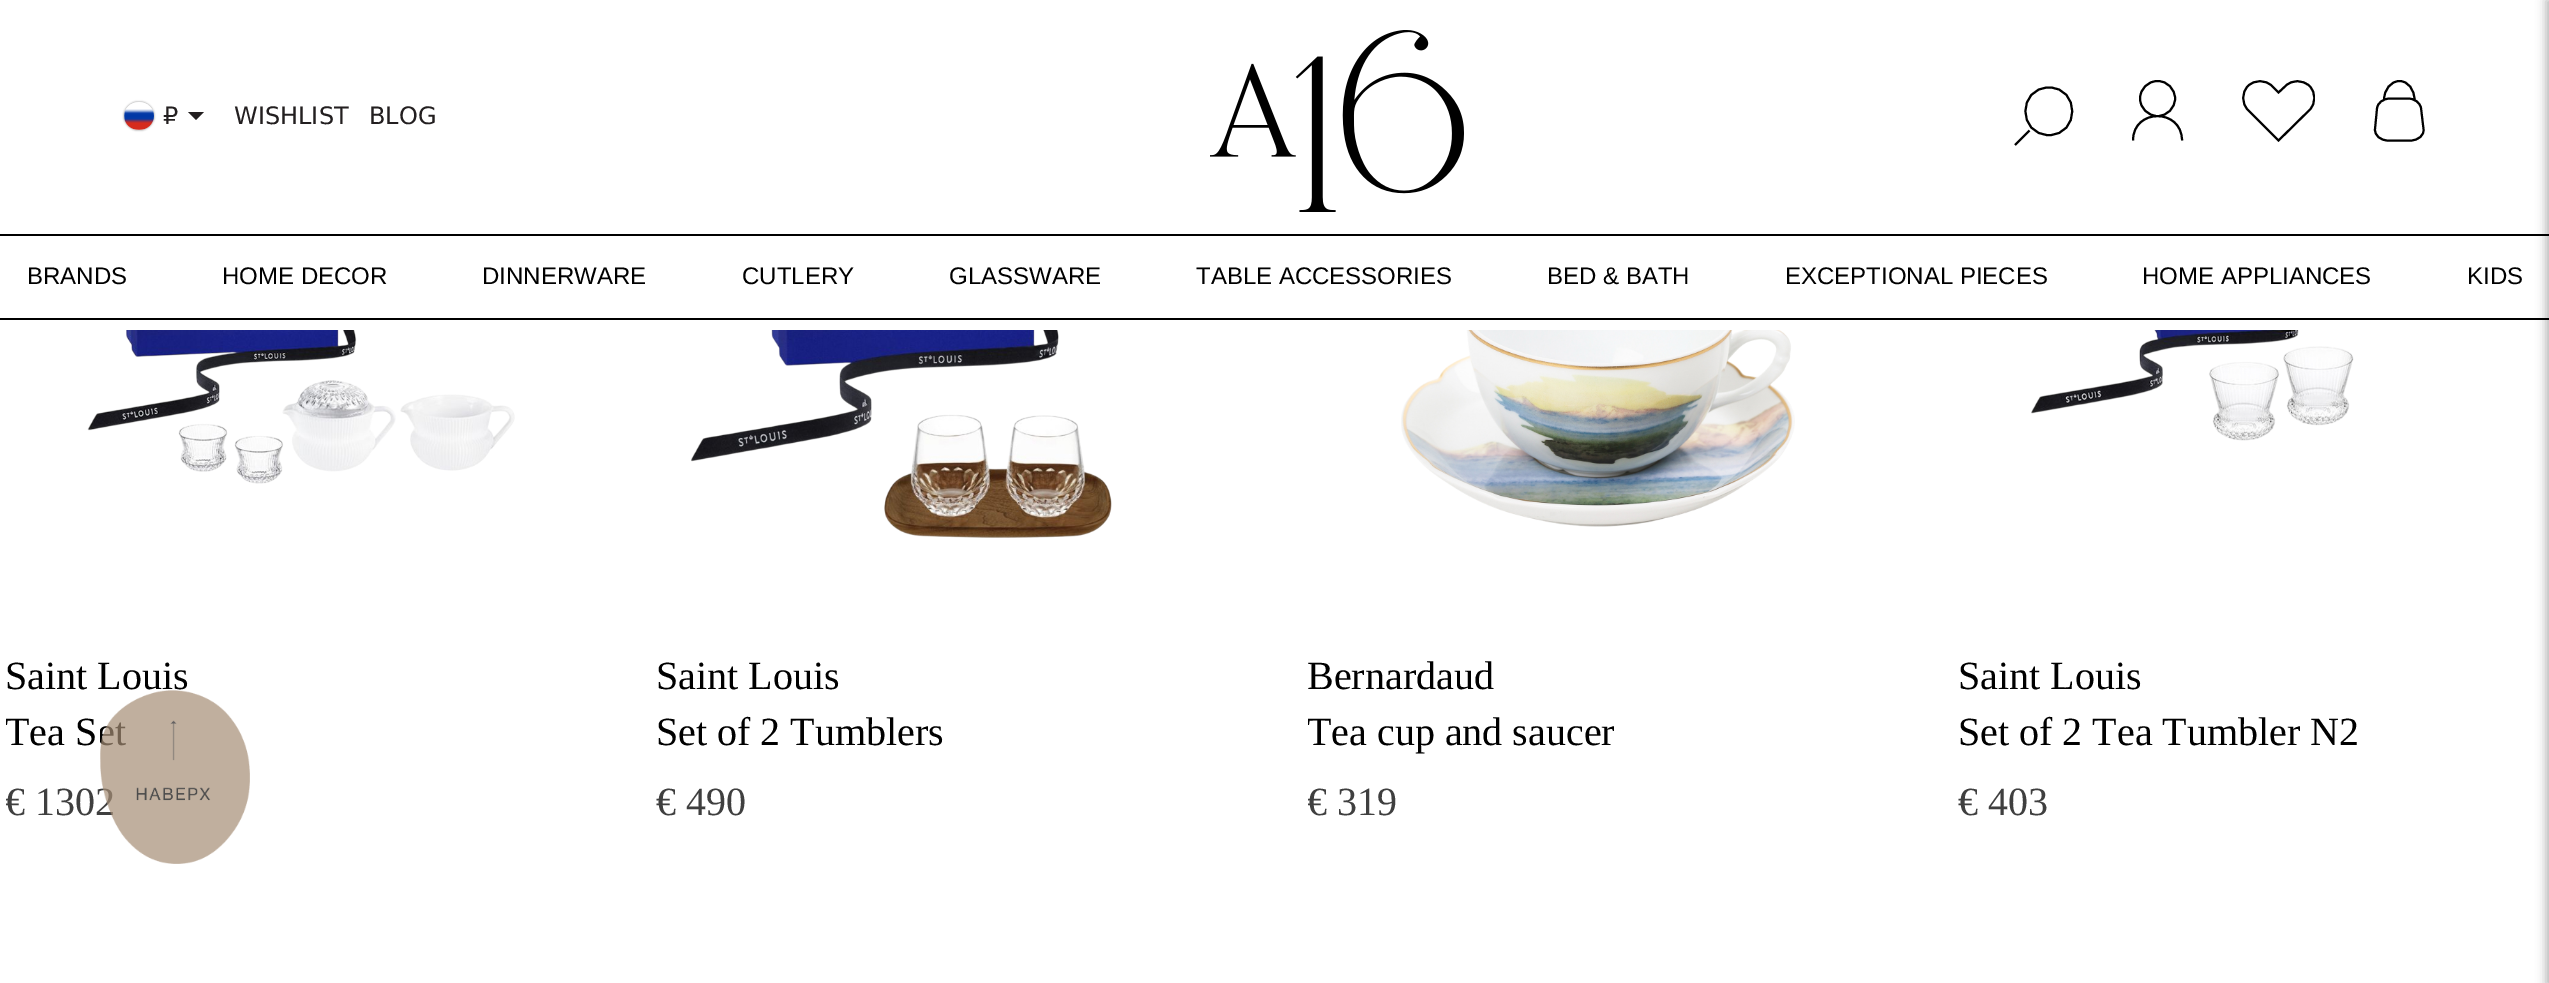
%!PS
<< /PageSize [2549 983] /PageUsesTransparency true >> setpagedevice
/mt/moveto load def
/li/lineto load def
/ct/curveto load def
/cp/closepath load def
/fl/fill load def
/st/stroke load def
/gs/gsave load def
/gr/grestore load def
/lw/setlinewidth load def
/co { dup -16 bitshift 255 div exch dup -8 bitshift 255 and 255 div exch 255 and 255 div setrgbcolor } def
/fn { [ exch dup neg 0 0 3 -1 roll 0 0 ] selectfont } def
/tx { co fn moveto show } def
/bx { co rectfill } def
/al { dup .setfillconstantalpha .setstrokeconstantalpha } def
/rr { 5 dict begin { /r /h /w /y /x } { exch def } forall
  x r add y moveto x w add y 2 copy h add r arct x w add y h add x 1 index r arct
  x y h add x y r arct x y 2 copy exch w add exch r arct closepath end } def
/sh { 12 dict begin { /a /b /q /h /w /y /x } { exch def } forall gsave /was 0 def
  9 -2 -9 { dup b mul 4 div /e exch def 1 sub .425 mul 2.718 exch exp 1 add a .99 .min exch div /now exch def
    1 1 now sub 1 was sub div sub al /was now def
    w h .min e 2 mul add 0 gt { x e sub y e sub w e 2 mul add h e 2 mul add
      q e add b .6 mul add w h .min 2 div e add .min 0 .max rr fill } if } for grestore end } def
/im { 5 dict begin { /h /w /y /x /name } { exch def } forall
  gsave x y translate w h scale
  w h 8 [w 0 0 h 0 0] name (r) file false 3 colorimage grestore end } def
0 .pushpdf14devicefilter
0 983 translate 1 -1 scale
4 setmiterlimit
0 0 2549 983 16#FFFFFF bx
16#888888 co
124 102 30 28 14 1 1 sh
16#DBDBDB co
124 102 30 28 14 rr fl
(media/1.raw) 124 102 30 28 im
16#231F20 co
188 112 mt 204 112 li 196 120 li cp fl
(media/2.raw) 1210 30 254 182 im
16#000000 co
2 lw
2049 135 mt 2080 135 2080 87.5 2049 87.5 ct 2017.5 87.5 2017.5 135 2049 135 ct cp 2029.5 130.5 mt 2015 145 li st
2157.5 116 mt 2167.5 116 2175 108 2175 98.5 ct 2175 89 2167.5 81 2157.5 81 ct 2148 81 2140 89 2140 98.5 ct 2140 108 2148 116 2157.5 116 ct cp 2133 140.5 mt 2133 108 2182 108 2182 140.5 ct st
gs
2242 80 73 62 rectclip
2278.5 140.5 mt 2248 110 li 2241.5 103.5 2241.5 92.5 2248 86 ct 2254.5 79.5 2265.5 79.5 2272 86 ct 2278.5 92.5 li 2285.5 86 li 2292 79.5 2302.5 79.5 2309.5 86 ct 2316 92.5 2316 103.5 2309.5 110 ct cp st
gr
2388 140.5 mt 2410.5 140.5 li 2418.5 140.5 2424.5 135 2423.5 129 ct 2421 108 li 2420 102.5 2414.5 98.5 2408 98.5 ct 2390 98.5 li 2383 98.5 2377.5 103 2377 108.5 ct 2375 129 li 2374.5 135.5 2380.5 140.5 2388 140.5 ct cp 2414.5 100 mt 2414.5 89.5 2408 81 2399.5 81 ct 2391 81 2384 89.5 2384 100 ct st
0 234 2549 2 16#000000 bx
0 318 2549 2 16#000000 bx
2546 0 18 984 0 5 .3 sh
(media/3.raw) 87 330 428 154 im
(media/4.raw) 691 330 421 208 im
(media/5.raw) 1401 330 394 197 im
(media/6.raw) 2031 330 323 111 im
(₽) 163 124 /DejaVuSans-Regular 24 16#231F20 tx
(WISHLIST) 234 124 /DejaVuSans-Regular 24 16#231F20 tx
(BLOG) 369 124 /DejaVuSans-Regular 24 16#231F20 tx
(BRANDS) 27 284 /LiberationSans-Regular 24 16#000000 tx
(HOME DECOR) 222 284 /LiberationSans-Regular 24 16#000000 tx
(DINNERWARE) 482 284 /LiberationSans-Regular 24 16#000000 tx
(CUTLERY) 742 284 /LiberationSans-Regular 24 16#000000 tx
(GLASSWARE) 949 284 /LiberationSans-Regular 24 16#000000 tx
(TABLE ACCESSORIES) 1196 284 /LiberationSans-Regular 24 16#000000 tx
(BED & BATH) 1547 284 /LiberationSans-Regular 24 16#000000 tx
(EXCEPTIONAL PIECES) 1785 284 /LiberationSans-Regular 24 16#000000 tx
(HOME APPLIANCES) 2142 284 /LiberationSans-Regular 24 16#000000 tx
(KIDS) 2467 284 /LiberationSans-Regular 24 16#000000 tx
(Saint Louis) 5 689 /LiberationSerif-Regular 40 16#000000 tx
gs
6 700 586 80 rectclip
(Tea S) 5 745 /LiberationSerif-Regular 40 16#000000 tx
gr
gs
6 700 586 120 rectclip
(€ 1302) 5 815 /LiberationSerif-Regular 40 16#3F3F3F tx
gr
(Saint Louis) 656 689 /LiberationSerif-Regular 40 16#000000 tx
(Set of 2 Tumblers) 656 745 /LiberationSerif-Regular 40 16#000000 tx
(€ 490) 656 815 /LiberationSerif-Regular 40 16#3F3F3F tx
(Bernardaud) 1307 689 /LiberationSerif-Regular 40 16#000000 tx
gs
1308 700 586 80 rectclip
(Tea cup and saucer) 1307 745 /LiberationSerif-Regular 40 16#000000 tx
gr
gs
1308 700 586 120 rectclip
(€ 319) 1307 815 /LiberationSerif-Regular 40 16#3F3F3F tx
gr
(Saint Louis) 1958 689 /LiberationSerif-Regular 40 16#000000 tx
(Set of 2 Tea Tumbler N2) 1958 745 /LiberationSerif-Regular 40 16#000000 tx
(€ 403) 1958 815 /LiberationSerif-Regular 40 16#3F3F3F tx
(media/7.raw) 100 690 150 174 im
.poppdf14devicefilter showpage
